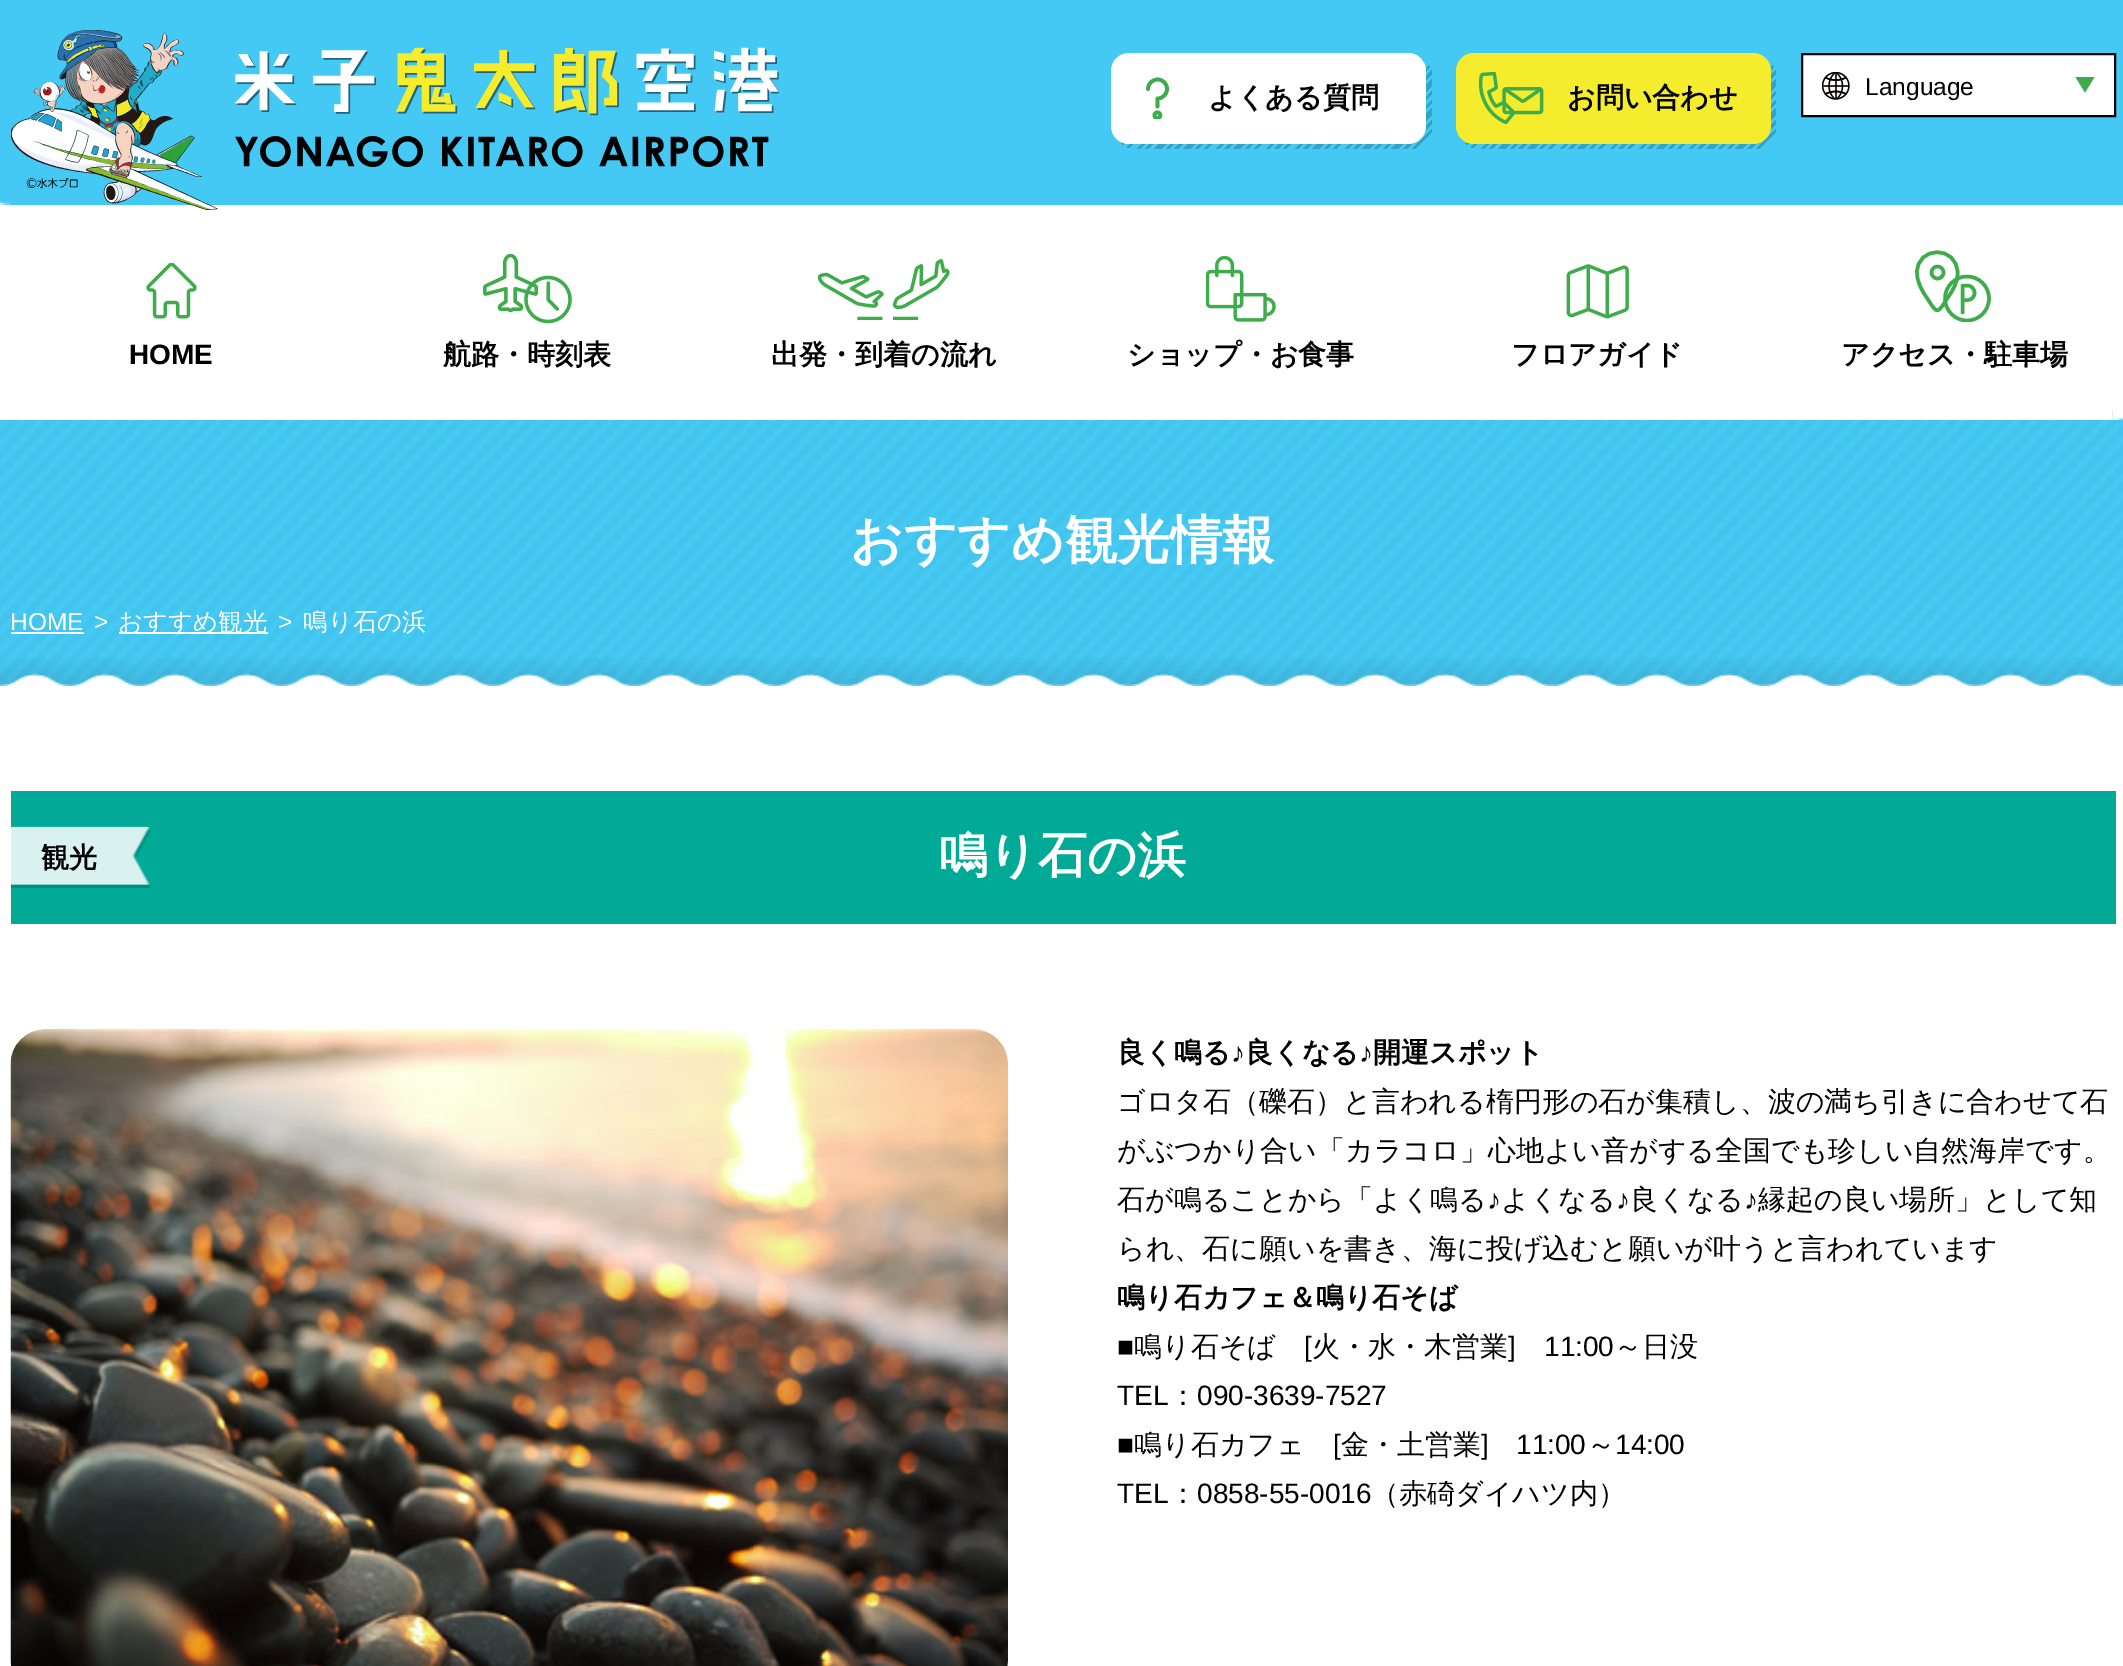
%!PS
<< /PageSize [2123 1666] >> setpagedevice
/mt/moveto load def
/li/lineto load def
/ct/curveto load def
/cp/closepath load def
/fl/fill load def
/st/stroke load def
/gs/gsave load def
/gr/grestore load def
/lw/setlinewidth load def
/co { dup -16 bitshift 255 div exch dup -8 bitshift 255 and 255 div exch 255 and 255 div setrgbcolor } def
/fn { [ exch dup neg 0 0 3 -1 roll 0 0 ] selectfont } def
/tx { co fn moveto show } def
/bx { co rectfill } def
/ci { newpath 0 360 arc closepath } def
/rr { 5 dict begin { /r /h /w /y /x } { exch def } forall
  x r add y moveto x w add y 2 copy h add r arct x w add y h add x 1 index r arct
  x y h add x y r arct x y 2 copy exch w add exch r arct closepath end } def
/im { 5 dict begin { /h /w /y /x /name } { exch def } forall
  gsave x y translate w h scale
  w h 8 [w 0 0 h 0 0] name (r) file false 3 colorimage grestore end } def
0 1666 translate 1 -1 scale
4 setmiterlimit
0 0 2123 1666 16#FFFFFF bx
0 0 2123 205 16#44C9F4 bx
(media/1.raw) 11 30 768 180 im
gs 1117 58 315 91 18 rr clip newpath
<< /ShadingType 2 /ColorSpace /DeviceRGB /Coords [1376 205 1168 -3.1] /Extend [true true] /Function << /FunctionType 3 /Domain [0 1] /Functions [<< /FunctionType 2 /Domain [0 1] /C0 [.267 .788 .957] /C1 [.267 .788 .957] /N 1 >> << /FunctionType 2 /Domain [0 1] /C0 [.212 .631 .765] /C1 [.212 .631 .765] /N 1 >> << /FunctionType 2 /Domain [0 1] /C0 [.267 .788 .957] /C1 [.267 .788 .957] /N 1 >> << /FunctionType 2 /Domain [0 1] /C0 [.212 .631 .765] /C1 [.212 .631 .765] /N 1 >> << /FunctionType 2 /Domain [0 1] /C0 [.267 .788 .957] /C1 [.267 .788 .957] /N 1 >> << /FunctionType 2 /Domain [0 1] /C0 [.212 .631 .765] /C1 [.212 .631 .765] /N 1 >> << /FunctionType 2 /Domain [0 1] /C0 [.267 .788 .957] /C1 [.267 .788 .957] /N 1 >> << /FunctionType 2 /Domain [0 1] /C0 [.212 .631 .765] /C1 [.212 .631 .765] /N 1 >> << /FunctionType 2 /Domain [0 1] /C0 [.267 .788 .957] /C1 [.267 .788 .957] /N 1 >> << /FunctionType 2 /Domain [0 1] /C0 [.212 .631 .765] /C1 [.212 .631 .765] /N 1 >> << /FunctionType 2 /Domain [0 1] /C0 [.267 .788 .957] /C1 [.267 .788 .957] /N 1 >> << /FunctionType 2 /Domain [0 1] /C0 [.212 .631 .765] /C1 [.212 .631 .765] /N 1 >> << /FunctionType 2 /Domain [0 1] /C0 [.267 .788 .957] /C1 [.267 .788 .957] /N 1 >> << /FunctionType 2 /Domain [0 1] /C0 [.212 .631 .765] /C1 [.212 .631 .765] /N 1 >> << /FunctionType 2 /Domain [0 1] /C0 [.267 .788 .957] /C1 [.267 .788 .957] /N 1 >> << /FunctionType 2 /Domain [0 1] /C0 [.212 .631 .765] /C1 [.212 .631 .765] /N 1 >> << /FunctionType 2 /Domain [0 1] /C0 [.267 .788 .957] /C1 [.267 .788 .957] /N 1 >> << /FunctionType 2 /Domain [0 1] /C0 [.212 .631 .765] /C1 [.212 .631 .765] /N 1 >> << /FunctionType 2 /Domain [0 1] /C0 [.267 .788 .957] /C1 [.267 .788 .957] /N 1 >> << /FunctionType 2 /Domain [0 1] /C0 [.212 .631 .765] /C1 [.212 .631 .765] /N 1 >> << /FunctionType 2 /Domain [0 1] /C0 [.267 .788 .957] /C1 [.267 .788 .957] /N 1 >> << /FunctionType 2 /Domain [0 1] /C0 [.212 .631 .765] /C1 [.212 .631 .765] /N 1 >> << /FunctionType 2 /Domain [0 1] /C0 [.267 .788 .957] /C1 [.267 .788 .957] /N 1 >> << /FunctionType 2 /Domain [0 1] /C0 [.212 .631 .765] /C1 [.212 .631 .765] /N 1 >> << /FunctionType 2 /Domain [0 1] /C0 [.267 .788 .957] /C1 [.267 .788 .957] /N 1 >> << /FunctionType 2 /Domain [0 1] /C0 [.212 .631 .765] /C1 [.212 .631 .765] /N 1 >> << /FunctionType 2 /Domain [0 1] /C0 [.267 .788 .957] /C1 [.267 .788 .957] /N 1 >> << /FunctionType 2 /Domain [0 1] /C0 [.212 .631 .765] /C1 [.212 .631 .765] /N 1 >> << /FunctionType 2 /Domain [0 1] /C0 [.267 .788 .957] /C1 [.267 .788 .957] /N 1 >> << /FunctionType 2 /Domain [0 1] /C0 [.212 .631 .765] /C1 [.212 .631 .765] /N 1 >> << /FunctionType 2 /Domain [0 1] /C0 [.267 .788 .957] /C1 [.267 .788 .957] /N 1 >> << /FunctionType 2 /Domain [0 1] /C0 [.212 .631 .765] /C1 [.212 .631 .765] /N 1 >> << /FunctionType 2 /Domain [0 1] /C0 [.267 .788 .957] /C1 [.267 .788 .957] /N 1 >> << /FunctionType 2 /Domain [0 1] /C0 [.212 .631 .765] /C1 [.212 .631 .765] /N 1 >> << /FunctionType 2 /Domain [0 1] /C0 [.267 .788 .957] /C1 [.267 .788 .957] /N 1 >> << /FunctionType 2 /Domain [0 1] /C0 [.212 .631 .765] /C1 [.212 .631 .765] /N 1 >> << /FunctionType 2 /Domain [0 1] /C0 [.267 .788 .957] /C1 [.267 .788 .957] /N 1 >> << /FunctionType 2 /Domain [0 1] /C0 [.212 .631 .765] /C1 [.212 .631 .765] /N 1 >> << /FunctionType 2 /Domain [0 1] /C0 [.267 .788 .957] /C1 [.267 .788 .957] /N 1 >> << /FunctionType 2 /Domain [0 1] /C0 [.212 .631 .765] /C1 [.212 .631 .765] /N 1 >> << /FunctionType 2 /Domain [0 1] /C0 [.267 .788 .957] /C1 [.267 .788 .957] /N 1 >> << /FunctionType 2 /Domain [0 1] /C0 [.212 .631 .765] /C1 [.212 .631 .765] /N 1 >> << /FunctionType 2 /Domain [0 1] /C0 [.267 .788 .957] /C1 [.267 .788 .957] /N 1 >> << /FunctionType 2 /Domain [0 1] /C0 [.212 .631 .765] /C1 [.212 .631 .765] /N 1 >> << /FunctionType 2 /Domain [0 1] /C0 [.267 .788 .957] /C1 [.267 .788 .957] /N 1 >> << /FunctionType 2 /Domain [0 1] /C0 [.212 .631 .765] /C1 [.212 .631 .765] /N 1 >> << /FunctionType 2 /Domain [0 1] /C0 [.267 .788 .957] /C1 [.267 .788 .957] /N 1 >> << /FunctionType 2 /Domain [0 1] /C0 [.212 .631 .765] /C1 [.212 .631 .765] /N 1 >> << /FunctionType 2 /Domain [0 1] /C0 [.267 .788 .957] /C1 [.267 .788 .957] /N 1 >> << /FunctionType 2 /Domain [0 1] /C0 [.212 .631 .765] /C1 [.212 .631 .765] /N 1 >> << /FunctionType 2 /Domain [0 1] /C0 [.267 .788 .957] /C1 [.267 .788 .957] /N 1 >> << /FunctionType 2 /Domain [0 1] /C0 [.212 .631 .765] /C1 [.212 .631 .765] /N 1 >> << /FunctionType 2 /Domain [0 1] /C0 [.267 .788 .957] /C1 [.267 .788 .957] /N 1 >> << /FunctionType 2 /Domain [0 1] /C0 [.212 .631 .765] /C1 [.212 .631 .765] /N 1 >> << /FunctionType 2 /Domain [0 1] /C0 [.267 .788 .957] /C1 [.267 .788 .957] /N 1 >> << /FunctionType 2 /Domain [0 1] /C0 [.212 .631 .765] /C1 [.212 .631 .765] /N 1 >> << /FunctionType 2 /Domain [0 1] /C0 [.267 .788 .957] /C1 [.267 .788 .957] /N 1 >> << /FunctionType 2 /Domain [0 1] /C0 [.212 .631 .765] /C1 [.212 .631 .765] /N 1 >> << /FunctionType 2 /Domain [0 1] /C0 [.267 .788 .957] /C1 [.267 .788 .957] /N 1 >> << /FunctionType 2 /Domain [0 1] /C0 [.212 .631 .765] /C1 [.212 .631 .765] /N 1 >> << /FunctionType 2 /Domain [0 1] /C0 [.267 .788 .957] /C1 [.267 .788 .957] /N 1 >> << /FunctionType 2 /Domain [0 1] /C0 [.212 .631 .765] /C1 [.212 .631 .765] /N 1 >> << /FunctionType 2 /Domain [0 1] /C0 [.267 .788 .957] /C1 [.267 .788 .957] /N 1 >> << /FunctionType 2 /Domain [0 1] /C0 [.212 .631 .765] /C1 [.212 .631 .765] /N 1 >> << /FunctionType 2 /Domain [0 1] /C0 [.267 .788 .957] /C1 [.267 .788 .957] /N 1 >> << /FunctionType 2 /Domain [0 1] /C0 [.212 .631 .765] /C1 [.212 .631 .765] /N 1 >> << /FunctionType 2 /Domain [0 1] /C0 [.267 .788 .957] /C1 [.267 .788 .957] /N 1 >> << /FunctionType 2 /Domain [0 1] /C0 [.212 .631 .765] /C1 [.212 .631 .765] /N 1 >> << /FunctionType 2 /Domain [0 1] /C0 [.267 .788 .957] /C1 [.267 .788 .957] /N 1 >> << /FunctionType 2 /Domain [0 1] /C0 [.212 .631 .765] /C1 [.212 .631 .765] /N 1 >> << /FunctionType 2 /Domain [0 1] /C0 [.267 .788 .957] /C1 [.267 .788 .957] /N 1 >> << /FunctionType 2 /Domain [0 1] /C0 [.212 .631 .765] /C1 [.212 .631 .765] /N 1 >> << /FunctionType 2 /Domain [0 1] /C0 [.267 .788 .957] /C1 [.267 .788 .957] /N 1 >> << /FunctionType 2 /Domain [0 1] /C0 [.212 .631 .765] /C1 [.212 .631 .765] /N 1 >> << /FunctionType 2 /Domain [0 1] /C0 [.267 .788 .957] /C1 [.267 .788 .957] /N 1 >> << /FunctionType 2 /Domain [0 1] /C0 [.212 .631 .765] /C1 [.212 .631 .765] /N 1 >> << /FunctionType 2 /Domain [0 1] /C0 [.267 .788 .957] /C1 [.267 .788 .957] /N 1 >> << /FunctionType 2 /Domain [0 1] /C0 [.212 .631 .765] /C1 [.212 .631 .765] /N 1 >> << /FunctionType 2 /Domain [0 1] /C0 [.267 .788 .957] /C1 [.267 .788 .957] /N 1 >> << /FunctionType 2 /Domain [0 1] /C0 [.212 .631 .765] /C1 [.212 .631 .765] /N 1 >> << /FunctionType 2 /Domain [0 1] /C0 [.267 .788 .957] /C1 [.267 .788 .957] /N 1 >> << /FunctionType 2 /Domain [0 1] /C0 [.212 .631 .765] /C1 [.212 .631 .765] /N 1 >> << /FunctionType 2 /Domain [0 1] /C0 [.267 .788 .957] /C1 [.267 .788 .957] /N 1 >> << /FunctionType 2 /Domain [0 1] /C0 [.212 .631 .765] /C1 [.212 .631 .765] /N 1 >>] /Bounds [.01 .02 .04 .05 .06 .07 .08 .1 .11 .12 .13 .14 .15 .17 .18 .19 .2 .21 .23 .24 .25 .26 .27 .29 .3 .31 .32 .33 .35 .36 .37 .38 .39 .4 .42 .43 .44 .45 .46 .48 .49 .5 .51 .52 .54 .55 .56 .57 .58 .6 .61 .62 .63 .64 .65 .67 .68 .69 .7 .71 .73 .74 .75 .76 .77 .79 .8 .81 .82 .83 .85 .86 .87 .88 .89 .9 .92 .93 .94 .95 .96 .98 .99] /Encode [0 1 0 1 0 1 0 1 0 1 0 1 0 1 0 1 0 1 0 1 0 1 0 1 0 1 0 1 0 1 0 1 0 1 0 1 0 1 0 1 0 1 0 1 0 1 0 1 0 1 0 1 0 1 0 1 0 1 0 1 0 1 0 1 0 1 0 1 0 1 0 1 0 1 0 1 0 1 0 1 0 1 0 1 0 1 0 1 0 1 0 1 0 1 0 1 0 1 0 1 0 1 0 1 0 1 0 1 0 1 0 1 0 1 0 1 0 1 0 1 0 1 0 1 0 1 0 1 0 1 0 1 0 1 0 1 0 1 0 1 0 1 0 1 0 1 0 1 0 1 0 1 0 1 0 1 0 1 0 1 0 1 0 1 0 1 0 1] >> >> shfill gr
16#FFFFFF co
1111 53 315 91 18 rr fl
16#3EAC4A co
3.7 lw
1 setlinecap
1 setlinejoin
1148 89 mt 1148 83.5 1152.5 79.5 1157.5 79.5 ct 1163 79.5 1167 83.5 1167 89 ct 1167 94 1163 98.5 1157.5 98.5 ct 1157.5 106.5 li st
gs
1146 77 23 42 rectclip
0 setlinecap
0 setlinejoin
1157.4 115.3 2.9 ci st
gr
gs 1461 58 315 91 18 rr clip newpath
<< /ShadingType 2 /ColorSpace /DeviceRGB /Coords [1720 205 1512 -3.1] /Extend [true true] /Function << /FunctionType 3 /Domain [0 1] /Functions [<< /FunctionType 2 /Domain [0 1] /C0 [.267 .788 .957] /C1 [.267 .788 .957] /N 1 >> << /FunctionType 2 /Domain [0 1] /C0 [.212 .631 .765] /C1 [.212 .631 .765] /N 1 >> << /FunctionType 2 /Domain [0 1] /C0 [.267 .788 .957] /C1 [.267 .788 .957] /N 1 >> << /FunctionType 2 /Domain [0 1] /C0 [.212 .631 .765] /C1 [.212 .631 .765] /N 1 >> << /FunctionType 2 /Domain [0 1] /C0 [.267 .788 .957] /C1 [.267 .788 .957] /N 1 >> << /FunctionType 2 /Domain [0 1] /C0 [.212 .631 .765] /C1 [.212 .631 .765] /N 1 >> << /FunctionType 2 /Domain [0 1] /C0 [.267 .788 .957] /C1 [.267 .788 .957] /N 1 >> << /FunctionType 2 /Domain [0 1] /C0 [.212 .631 .765] /C1 [.212 .631 .765] /N 1 >> << /FunctionType 2 /Domain [0 1] /C0 [.267 .788 .957] /C1 [.267 .788 .957] /N 1 >> << /FunctionType 2 /Domain [0 1] /C0 [.212 .631 .765] /C1 [.212 .631 .765] /N 1 >> << /FunctionType 2 /Domain [0 1] /C0 [.267 .788 .957] /C1 [.267 .788 .957] /N 1 >> << /FunctionType 2 /Domain [0 1] /C0 [.212 .631 .765] /C1 [.212 .631 .765] /N 1 >> << /FunctionType 2 /Domain [0 1] /C0 [.267 .788 .957] /C1 [.267 .788 .957] /N 1 >> << /FunctionType 2 /Domain [0 1] /C0 [.212 .631 .765] /C1 [.212 .631 .765] /N 1 >> << /FunctionType 2 /Domain [0 1] /C0 [.267 .788 .957] /C1 [.267 .788 .957] /N 1 >> << /FunctionType 2 /Domain [0 1] /C0 [.212 .631 .765] /C1 [.212 .631 .765] /N 1 >> << /FunctionType 2 /Domain [0 1] /C0 [.267 .788 .957] /C1 [.267 .788 .957] /N 1 >> << /FunctionType 2 /Domain [0 1] /C0 [.212 .631 .765] /C1 [.212 .631 .765] /N 1 >> << /FunctionType 2 /Domain [0 1] /C0 [.267 .788 .957] /C1 [.267 .788 .957] /N 1 >> << /FunctionType 2 /Domain [0 1] /C0 [.212 .631 .765] /C1 [.212 .631 .765] /N 1 >> << /FunctionType 2 /Domain [0 1] /C0 [.267 .788 .957] /C1 [.267 .788 .957] /N 1 >> << /FunctionType 2 /Domain [0 1] /C0 [.212 .631 .765] /C1 [.212 .631 .765] /N 1 >> << /FunctionType 2 /Domain [0 1] /C0 [.267 .788 .957] /C1 [.267 .788 .957] /N 1 >> << /FunctionType 2 /Domain [0 1] /C0 [.212 .631 .765] /C1 [.212 .631 .765] /N 1 >> << /FunctionType 2 /Domain [0 1] /C0 [.267 .788 .957] /C1 [.267 .788 .957] /N 1 >> << /FunctionType 2 /Domain [0 1] /C0 [.212 .631 .765] /C1 [.212 .631 .765] /N 1 >> << /FunctionType 2 /Domain [0 1] /C0 [.267 .788 .957] /C1 [.267 .788 .957] /N 1 >> << /FunctionType 2 /Domain [0 1] /C0 [.212 .631 .765] /C1 [.212 .631 .765] /N 1 >> << /FunctionType 2 /Domain [0 1] /C0 [.267 .788 .957] /C1 [.267 .788 .957] /N 1 >> << /FunctionType 2 /Domain [0 1] /C0 [.212 .631 .765] /C1 [.212 .631 .765] /N 1 >> << /FunctionType 2 /Domain [0 1] /C0 [.267 .788 .957] /C1 [.267 .788 .957] /N 1 >> << /FunctionType 2 /Domain [0 1] /C0 [.212 .631 .765] /C1 [.212 .631 .765] /N 1 >> << /FunctionType 2 /Domain [0 1] /C0 [.267 .788 .957] /C1 [.267 .788 .957] /N 1 >> << /FunctionType 2 /Domain [0 1] /C0 [.212 .631 .765] /C1 [.212 .631 .765] /N 1 >> << /FunctionType 2 /Domain [0 1] /C0 [.267 .788 .957] /C1 [.267 .788 .957] /N 1 >> << /FunctionType 2 /Domain [0 1] /C0 [.212 .631 .765] /C1 [.212 .631 .765] /N 1 >> << /FunctionType 2 /Domain [0 1] /C0 [.267 .788 .957] /C1 [.267 .788 .957] /N 1 >> << /FunctionType 2 /Domain [0 1] /C0 [.212 .631 .765] /C1 [.212 .631 .765] /N 1 >> << /FunctionType 2 /Domain [0 1] /C0 [.267 .788 .957] /C1 [.267 .788 .957] /N 1 >> << /FunctionType 2 /Domain [0 1] /C0 [.212 .631 .765] /C1 [.212 .631 .765] /N 1 >> << /FunctionType 2 /Domain [0 1] /C0 [.267 .788 .957] /C1 [.267 .788 .957] /N 1 >> << /FunctionType 2 /Domain [0 1] /C0 [.212 .631 .765] /C1 [.212 .631 .765] /N 1 >> << /FunctionType 2 /Domain [0 1] /C0 [.267 .788 .957] /C1 [.267 .788 .957] /N 1 >> << /FunctionType 2 /Domain [0 1] /C0 [.212 .631 .765] /C1 [.212 .631 .765] /N 1 >> << /FunctionType 2 /Domain [0 1] /C0 [.267 .788 .957] /C1 [.267 .788 .957] /N 1 >> << /FunctionType 2 /Domain [0 1] /C0 [.212 .631 .765] /C1 [.212 .631 .765] /N 1 >> << /FunctionType 2 /Domain [0 1] /C0 [.267 .788 .957] /C1 [.267 .788 .957] /N 1 >> << /FunctionType 2 /Domain [0 1] /C0 [.212 .631 .765] /C1 [.212 .631 .765] /N 1 >> << /FunctionType 2 /Domain [0 1] /C0 [.267 .788 .957] /C1 [.267 .788 .957] /N 1 >> << /FunctionType 2 /Domain [0 1] /C0 [.212 .631 .765] /C1 [.212 .631 .765] /N 1 >> << /FunctionType 2 /Domain [0 1] /C0 [.267 .788 .957] /C1 [.267 .788 .957] /N 1 >> << /FunctionType 2 /Domain [0 1] /C0 [.212 .631 .765] /C1 [.212 .631 .765] /N 1 >> << /FunctionType 2 /Domain [0 1] /C0 [.267 .788 .957] /C1 [.267 .788 .957] /N 1 >> << /FunctionType 2 /Domain [0 1] /C0 [.212 .631 .765] /C1 [.212 .631 .765] /N 1 >> << /FunctionType 2 /Domain [0 1] /C0 [.267 .788 .957] /C1 [.267 .788 .957] /N 1 >> << /FunctionType 2 /Domain [0 1] /C0 [.212 .631 .765] /C1 [.212 .631 .765] /N 1 >> << /FunctionType 2 /Domain [0 1] /C0 [.267 .788 .957] /C1 [.267 .788 .957] /N 1 >> << /FunctionType 2 /Domain [0 1] /C0 [.212 .631 .765] /C1 [.212 .631 .765] /N 1 >> << /FunctionType 2 /Domain [0 1] /C0 [.267 .788 .957] /C1 [.267 .788 .957] /N 1 >> << /FunctionType 2 /Domain [0 1] /C0 [.212 .631 .765] /C1 [.212 .631 .765] /N 1 >> << /FunctionType 2 /Domain [0 1] /C0 [.267 .788 .957] /C1 [.267 .788 .957] /N 1 >> << /FunctionType 2 /Domain [0 1] /C0 [.212 .631 .765] /C1 [.212 .631 .765] /N 1 >> << /FunctionType 2 /Domain [0 1] /C0 [.267 .788 .957] /C1 [.267 .788 .957] /N 1 >> << /FunctionType 2 /Domain [0 1] /C0 [.212 .631 .765] /C1 [.212 .631 .765] /N 1 >> << /FunctionType 2 /Domain [0 1] /C0 [.267 .788 .957] /C1 [.267 .788 .957] /N 1 >> << /FunctionType 2 /Domain [0 1] /C0 [.212 .631 .765] /C1 [.212 .631 .765] /N 1 >> << /FunctionType 2 /Domain [0 1] /C0 [.267 .788 .957] /C1 [.267 .788 .957] /N 1 >> << /FunctionType 2 /Domain [0 1] /C0 [.212 .631 .765] /C1 [.212 .631 .765] /N 1 >> << /FunctionType 2 /Domain [0 1] /C0 [.267 .788 .957] /C1 [.267 .788 .957] /N 1 >> << /FunctionType 2 /Domain [0 1] /C0 [.212 .631 .765] /C1 [.212 .631 .765] /N 1 >> << /FunctionType 2 /Domain [0 1] /C0 [.267 .788 .957] /C1 [.267 .788 .957] /N 1 >> << /FunctionType 2 /Domain [0 1] /C0 [.212 .631 .765] /C1 [.212 .631 .765] /N 1 >> << /FunctionType 2 /Domain [0 1] /C0 [.267 .788 .957] /C1 [.267 .788 .957] /N 1 >> << /FunctionType 2 /Domain [0 1] /C0 [.212 .631 .765] /C1 [.212 .631 .765] /N 1 >> << /FunctionType 2 /Domain [0 1] /C0 [.267 .788 .957] /C1 [.267 .788 .957] /N 1 >> << /FunctionType 2 /Domain [0 1] /C0 [.212 .631 .765] /C1 [.212 .631 .765] /N 1 >> << /FunctionType 2 /Domain [0 1] /C0 [.267 .788 .957] /C1 [.267 .788 .957] /N 1 >> << /FunctionType 2 /Domain [0 1] /C0 [.212 .631 .765] /C1 [.212 .631 .765] /N 1 >> << /FunctionType 2 /Domain [0 1] /C0 [.267 .788 .957] /C1 [.267 .788 .957] /N 1 >> << /FunctionType 2 /Domain [0 1] /C0 [.212 .631 .765] /C1 [.212 .631 .765] /N 1 >> << /FunctionType 2 /Domain [0 1] /C0 [.267 .788 .957] /C1 [.267 .788 .957] /N 1 >> << /FunctionType 2 /Domain [0 1] /C0 [.212 .631 .765] /C1 [.212 .631 .765] /N 1 >> << /FunctionType 2 /Domain [0 1] /C0 [.267 .788 .957] /C1 [.267 .788 .957] /N 1 >> << /FunctionType 2 /Domain [0 1] /C0 [.212 .631 .765] /C1 [.212 .631 .765] /N 1 >>] /Bounds [.01 .02 .04 .05 .06 .07 .08 .1 .11 .12 .13 .14 .15 .17 .18 .19 .2 .21 .23 .24 .25 .26 .27 .29 .3 .31 .32 .33 .35 .36 .37 .38 .39 .4 .42 .43 .44 .45 .46 .48 .49 .5 .51 .52 .54 .55 .56 .57 .58 .6 .61 .62 .63 .64 .65 .67 .68 .69 .7 .71 .73 .74 .75 .76 .77 .79 .8 .81 .82 .83 .85 .86 .87 .88 .89 .9 .92 .93 .94 .95 .96 .98 .99] /Encode [0 1 0 1 0 1 0 1 0 1 0 1 0 1 0 1 0 1 0 1 0 1 0 1 0 1 0 1 0 1 0 1 0 1 0 1 0 1 0 1 0 1 0 1 0 1 0 1 0 1 0 1 0 1 0 1 0 1 0 1 0 1 0 1 0 1 0 1 0 1 0 1 0 1 0 1 0 1 0 1 0 1 0 1 0 1 0 1 0 1 0 1 0 1 0 1 0 1 0 1 0 1 0 1 0 1 0 1 0 1 0 1 0 1 0 1 0 1 0 1 0 1 0 1 0 1 0 1 0 1 0 1 0 1 0 1 0 1 0 1 0 1 0 1 0 1 0 1 0 1 0 1 0 1 0 1 0 1 0 1 0 1 0 1 0 1 0 1] >> >> shfill gr
16#F4EC2C co
1456 53 315 91 18 rr fl
(media/2.raw) 1479 72 65 52 im
1803 55 311 60 16#FFFFFF bx
16#3EAC4A co
2085 92.5 mt 2075.5 77 li 2094.5 77 li cp fl
(media/3.raw) 1822 72 28 28 im
16#000000 co
2 lw
0 setlinecap
0 setlinejoin
1802 54 313 62 rectstroke
(media/4.raw) 0 201 11 4 im
(media/5.raw) 146 263 51 56 im
(media/6.raw) 483 254 89 70 im
(media/7.raw) 817 259 133 61 im
(media/8.raw) 1206 256 70 66 im
(media/9.raw) 1566 264 63 55 im
16#3EAC4A co
3.5 lw
1937.5 272.5 6 ci st
1 setlinecap
1 setlinejoin
1957.5 273 mt 1957.5 245 1916.5 245.5 1917 273 ct 1917 282 1922 291 1927 298 ct 1937.5 314.5 1937 314.5 1947.5 298 ct 1952.5 291 1958 282 1957.5 273 ct cp st
gs
1915 250 77 72 rectclip
0 setlinecap
0 setlinejoin
1967 298.5 22 ci st
gr
1962.5 300 mt 1967.5 300 li 1971.5 300 1974.5 297 1974.5 293 ct 1974.5 289 1971.5 285.5 1967.5 285.5 ct 1962.5 285.5 li 1962.5 312.5 li st
(media/11.raw) 0 410 2123 276 im
0 410 2112 10 16#FFFFFF bx
(media/10.raw) 2112 410 11 10 im
11 632 73 2 16#FFFFFF bx
119 632 149 2 16#FFFFFF bx
(media/12.raw) 0 658 2123 28 im
11 791 2105 133 16#00AA97 bx
(media/13.raw) 10 826 141 62 im
(media/14.raw) 10 1029 998 637 im
(よくある質問) 1208 107 /WenQuanYiZenHei-Bold 28 16#000000 tx
(お問い合わせ) 1567 107 /WenQuanYiZenHei-Bold 28 16#000000 tx
(Language) 1865 95 /LiberationSans-Regular 24.5 16#000000 tx
(HOME) 129 364 /LiberationSans-Bold 28 16#000000 tx
(航路・時刻表) 443 364 /WenQuanYiZenHei-Bold 28 16#000000 tx
(出発・到着の流れ) 771 364 /WenQuanYiZenHei-Bold 28 16#000000 tx
(ショップ・お食事) 1127 364 /WenQuanYiZenHei-Bold 28 16#000000 tx
(フロアガイド) 1511 364 /WenQuanYiZenHei-Bold 28 16#000000 tx
(アクセス・駐車場) 1841 364 /WenQuanYiZenHei-Bold 28 16#000000 tx
(おすすめ観光情報) 850 558 /WenQuanYiZenHei-Bold 52.5 16#FFFFFF tx
(HOME) 10 630 /LiberationSans-Regular 24.5 16#FFFFFF tx
(>) 94 630 /LiberationSans-Regular 24.5 16#FFFFFF tx
(おすすめ観光) 118 630 /WenQuanYiZenHei-Medium 24.5 16#FFFFFF tx
(>) 278 630 /LiberationSans-Regular 24.5 16#FFFFFF tx
(鳴り石の浜) 303 630 /WenQuanYiZenHei-Medium 24.5 16#FFFFFF tx
(観光) 41 867 /WenQuanYiZenHei-Bold 28 16#000000 tx
(鳴り石の浜) 939 872 /WenQuanYiZenHei-Bold 49 16#FFFFFF tx
(良く鳴る) 1117 1062 /WenQuanYiZenHei-Bold 28 16#000000 tx
(♪) 1231 1062 /LiberationSans-Bold 28 16#000000 tx
(良くなる) 1245 1062 /WenQuanYiZenHei-Bold 28 16#000000 tx
(♪) 1359 1062 /LiberationSans-Bold 28 16#000000 tx
(開運スポット) 1373 1062 /WenQuanYiZenHei-Bold 28 16#000000 tx
(ゴロタ石（礫石）と言われる楕円形の石が集積し、波の満ち引きに合わせて石) 1117 1111 /WenQuanYiZenHei-Medium 28 16#000000 tx
(がぶつかり合い「カラコロ」心地よい音がする全国でも珍しい自然海岸です。) 1117 1160 /WenQuanYiZenHei-Medium 28 16#000000 tx
(石が鳴ることから「よく鳴る) 1117 1209 /WenQuanYiZenHei-Medium 28 16#000000 tx
(♪) 1487 1209 /LiberationSans-Regular 28 16#000000 tx
(よくなる) 1501 1209 /WenQuanYiZenHei-Medium 28 16#000000 tx
(♪) 1616 1209 /LiberationSans-Regular 28 16#000000 tx
(良くなる) 1630 1209 /WenQuanYiZenHei-Medium 28 16#000000 tx
(♪) 1744 1209 /LiberationSans-Regular 28 16#000000 tx
(縁起の良い場所」として知) 1758 1209 /WenQuanYiZenHei-Medium 28 16#000000 tx
(られ、石に願いを書き、海に投げ込むと願いが叶うと言われています) 1117 1258 /WenQuanYiZenHei-Medium 28 16#000000 tx
(鳴り石カフェ＆鳴り石そば) 1117 1307 /WenQuanYiZenHei-Bold 28 16#000000 tx
(■) 1117 1356 /LiberationSans-Regular 28 16#000000 tx
(鳴り石そば) 1134 1356 /WenQuanYiZenHei-Medium 28 16#000000 tx
([) 1304 1356 /LiberationSans-Regular 28 16#000000 tx
(火・水・木営業) 1312 1356 /WenQuanYiZenHei-Medium 28 16#000000 tx
(]) 1508 1356 /LiberationSans-Regular 28 16#000000 tx
(11:00) 1544 1356 /LiberationSans-Regular 28 16#000000 tx
(～日没) 1614 1356 /WenQuanYiZenHei-Medium 28 16#000000 tx
(TEL) 1117 1405 /LiberationSans-Regular 28 16#000000 tx
(：) 1169 1405 /WenQuanYiZenHei-Medium 28 16#000000 tx
(090-3639-7527) 1197 1405 /LiberationSans-Regular 28 16#000000 tx
(■) 1117 1454 /LiberationSans-Regular 28 16#000000 tx
(鳴り石カフェ) 1134 1454 /WenQuanYiZenHei-Medium 28 16#000000 tx
([) 1333 1454 /LiberationSans-Regular 28 16#000000 tx
(金・土営業) 1341 1454 /WenQuanYiZenHei-Medium 28 16#000000 tx
(]) 1481 1454 /LiberationSans-Regular 28 16#000000 tx
(11:00) 1516 1454 /LiberationSans-Regular 28 16#000000 tx
(～) 1587 1454 /WenQuanYiZenHei-Medium 28 16#000000 tx
(14:00) 1615 1454 /LiberationSans-Regular 28 16#000000 tx
(TEL) 1117 1503 /LiberationSans-Regular 28 16#000000 tx
(：) 1169 1503 /WenQuanYiZenHei-Medium 28 16#000000 tx
(0858-55-0016) 1197 1503 /LiberationSans-Regular 28 16#000000 tx
(（赤碕ダイハツ内）) 1371 1503 /WenQuanYiZenHei-Medium 28 16#000000 tx
showpage
